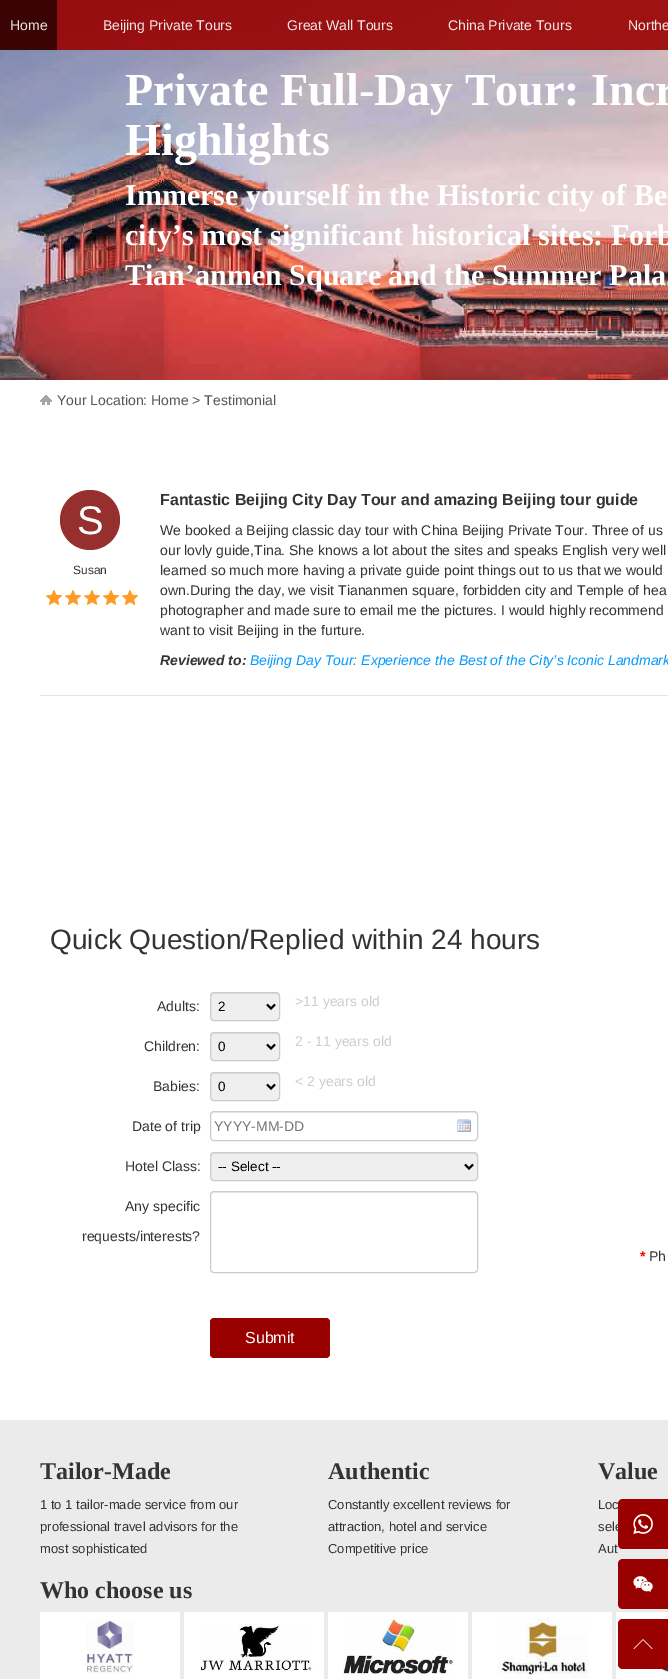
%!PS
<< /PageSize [668 1679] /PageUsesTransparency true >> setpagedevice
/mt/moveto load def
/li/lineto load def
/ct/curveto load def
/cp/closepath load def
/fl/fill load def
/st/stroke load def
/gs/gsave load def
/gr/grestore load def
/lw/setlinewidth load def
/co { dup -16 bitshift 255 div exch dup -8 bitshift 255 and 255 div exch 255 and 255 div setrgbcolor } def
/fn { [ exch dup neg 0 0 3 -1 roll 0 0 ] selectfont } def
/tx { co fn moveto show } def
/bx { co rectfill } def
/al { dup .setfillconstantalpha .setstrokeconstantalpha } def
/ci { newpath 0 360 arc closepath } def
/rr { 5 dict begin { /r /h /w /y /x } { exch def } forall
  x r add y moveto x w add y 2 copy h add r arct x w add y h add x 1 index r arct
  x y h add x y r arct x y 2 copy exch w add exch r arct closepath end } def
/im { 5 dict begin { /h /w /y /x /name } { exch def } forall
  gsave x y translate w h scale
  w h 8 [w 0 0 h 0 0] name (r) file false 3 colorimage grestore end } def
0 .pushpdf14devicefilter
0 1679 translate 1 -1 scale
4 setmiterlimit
0 0 668 1679 16#EBEBEB bx
(media/1.raw) 0 0 668 380 im
0.9 al
57 0 611 50 16#990100 bx
1 al
0 0 57 50 16#3A0404 bx
0 380 668 1040 16#FFFFFF bx
(media/2.raw) 40 395 12 10 im
40 695 628 1 16#E5E5E5 bx
16#96302E co
90 520 30 ci fl
(media/3.raw) 46 590 16 15 im
(media/3.raw) 65 590 16 15 im
(media/3.raw) 84 590 16 15 im
(media/3.raw) 103 590 16 15 im
(media/3.raw) 122 590 16 15 im
16#EFEFEF co
210 992 70 29 4 rr fl
16#DDDDDD co
214 994 mt 276 994 li 278 994 279 995 279 997 ct 279 990 270 993 266 993 ct 224 993 li 220 993 211 990 211 997 ct 211 995 212 994 214 994 ct cp fl
16#CCCCCC co
210.5 992.5 69 28 3.5 rr st
16#000000 co
2 lw
267 1004.5 mt 271 1008.5 li 275 1004.5 li st
16#EFEFEF co
210 1032 70 29 4 rr fl
16#DDDDDD co
214 1034 mt 276 1034 li 278 1034 279 1035 279 1037 ct 279 1030 270 1033 266 1033 ct 224 1033 li 220 1033 211 1030 211 1037 ct 211 1035 212 1034 214 1034 ct cp fl
16#CCCCCC co
1 lw
210.5 1032.5 69 28 3.5 rr st
16#000000 co
2 lw
267 1044.5 mt 271 1048.5 li 275 1044.5 li st
16#EFEFEF co
210 1072 70 29 4 rr fl
16#DDDDDD co
214 1074 mt 276 1074 li 278 1074 279 1075 279 1077 ct 279 1070 270 1073 266 1073 ct 224 1073 li 220 1073 211 1070 211 1077 ct 211 1075 212 1074 214 1074 ct cp fl
16#CCCCCC co
1 lw
210.5 1072.5 69 28 3.5 rr st
16#000000 co
2 lw
267 1084.5 mt 271 1088.5 li 275 1084.5 li st
(media/4.raw) 457 1119 14 13 im
16#ECECEC co
214 1113 mt 474 1113 li 476 1113 477 1114 477 1116 ct 477 1115 li 477 1113 476 1112 474 1112 ct 214 1112 li 212 1112 211 1113 211 1115 ct 211 1116 li 211 1114 212 1113 214 1113 ct cp fl
16#CCCCCC co
1 lw
210.5 1111.5 267 29 3.5 rr st
16#EFEFEF co
210 1152 268 29 4 rr fl
16#DDDDDD co
214 1154 mt 474 1154 li 476 1154 477 1155 477 1157 ct 477 1156 li 477 1154 476 1153 474 1153 ct 214 1153 li 212 1153 211 1154 211 1156 ct 211 1157 li 211 1155 212 1154 214 1154 ct cp fl
16#CCCCCC co
210.5 1152.5 267 28 3.5 rr st
16#000000 co
2 lw
465 1164.5 mt 469 1168.5 li 473 1164.5 li st
16#ECECEC co
214 1193 mt 474 1193 li 476 1193 477 1194 477 1196 ct 477 1195 li 477 1193 476 1192 474 1192 ct 214 1192 li 212 1192 211 1193 211 1195 ct 211 1196 li 211 1194 212 1193 214 1193 ct cp fl
16#CCCCCC co
1 lw
210.5 1191.5 267 81 3.5 rr st
16#990100 co
210 1318 120 40 4 rr fl
40 1612 140 67 16#FFFFFF bx
(media/5.raw) 87 1620 47 53 im
184 1612 140 67 16#FFFFFF bx
(media/6.raw) 200 1624 113 47 im
328 1612 140 67 16#FFFFFF bx
(media/7.raw) 343 1619 110 55 im
472 1612 140 67 16#FFFFFF bx
(media/8.raw) 498 1617 90 62 im
616 1612 52 67 16#FFFFFF bx
(media/9.raw) 644 1669 24 3 im
16#990100 co
623 1559 mt 668 1559 li 668 1609 li 623 1609 li 620 1609 618 1607 618 1604 ct 618 1564 li 618 1561 620 1559 623 1559 ct cp fl
(media/11.raw) 633 1576 20 16 im
623 1619 mt 668 1619 li 668 1669 li 623 1669 li 620 1669 618 1667 618 1664 ct 618 1624 li 618 1621 620 1619 623 1619 ct cp fl
(media/12.raw) 633 1639 20 10 im
(Home) 10 30 /LiberationSans-Regular 14 16#EBE6E6 tx
(Beijing Private Tours) 103 30 /LiberationSans-Regular 14 16#F5E7E7 tx
(Great Wall Tours) 287 30 /LiberationSans-Regular 14 16#F5E7E7 tx
(China Private Tours) 448 30 /LiberationSans-Regular 14 16#F5E7E7 tx
(Northe) 628 30 /LiberationSans-Regular 14 16#F5E7E7 tx
(Private Full-Day Tour: Incr) 125 105 /LiberationSerif-Bold 46 16#FFFFFF tx
gs
125 65 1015 100 rectclip
(Highlights) 125 155 /LiberationSerif-Bold 46 16#FFFFFF tx
gr
(Immerse yourself in the Historic city of Be) 125 205 /LiberationSerif-Bold 30 16#FFFFFF tx
(city’s most significant historical sites: Forb) 125 245 /LiberationSerif-Bold 30 16#FFFFFF tx
(Tian’anmen Square and the Summer Pala) 125 285 /LiberationSerif-Bold 30 16#FFFFFF tx
(Your Location: Home > Testimonial) 57 405 /LiberationSans-Regular 14 16#555555 tx
(S) 77 534 /LiberationSans-Regular 40 16#FFFFFF tx
(Susan) 73 574 /LiberationSans-Regular 12 16#333333 tx
(Fantastic Beijing City Day Tour and amazing Beijing tour guide) 160 505 /LiberationSans-Bold 16 16#333333 tx
(We booked a Beijing classic day tour with China Beijing Private Tour. Three of us) 160 535 /LiberationSans-Regular 14 16#333333 tx
(our lovly guide,Tina. She knows a lot about the sites and speaks English very well) 160 555 /LiberationSans-Regular 14 16#333333 tx
(learned so much more having a private guide point things out to us that we would) 160 575 /LiberationSans-Regular 14 16#333333 tx
(own.During the day, we visit Tiananmen square, forbidden city and Temple of hea) 160 595 /LiberationSans-Regular 14 16#333333 tx
(photographer and made sure to email me the pictures. I would highly recommend) 160 615 /LiberationSans-Regular 14 16#333333 tx
(want to visit Beijing in the furture.) 160 635 /LiberationSans-Regular 14 16#333333 tx
(Reviewed to:) 160 665 /LiberationSans-BoldItalic 14 16#333333 tx
(Beijing Day Tour: Experience the Best of the City’s Iconic Landmark) 250 665 /LiberationSans-Italic 14 16#0099FF tx
(Quick Question/Replied within 24 hours) 50 949 /LiberationSans-Regular 28 16#333333 tx
(Adults:) 157 1011 /LiberationSans-Regular 14 16#333333 tx
(2) 218 1011 /LiberationSans-Regular 13.5 16#000000 tx
(>11 years old) 295 1006 /LiberationSans-Regular 14 16#CCCCCC tx
(Children:) 144 1051 /LiberationSans-Regular 14 16#333333 tx
(0) 218 1051 /LiberationSans-Regular 13.5 16#000000 tx
(2 - 11 years old) 295 1046 /LiberationSans-Regular 14 16#CCCCCC tx
(Babies:) 153 1091 /LiberationSans-Regular 14 16#333333 tx
(0) 218 1091 /LiberationSans-Regular 13.5 16#000000 tx
(< 2 years old) 295 1086 /LiberationSans-Regular 14 16#CCCCCC tx
(Date of trip) 132 1131 /LiberationSans-Regular 14 16#333333 tx
(YYYY-MM-DD) 214 1131 /LiberationSans-Regular 14 16#757575 tx
(Hotel Class:) 125 1171 /LiberationSans-Regular 14 16#333333 tx
(-- Select --) 218 1171 /LiberationSans-Regular 13.5 16#000000 tx
(Any specific) 125 1211 /LiberationSans-Regular 14 16#333333 tx
(requests/interests?) 82 1241 /LiberationSans-Regular 14 16#333333 tx
(*) 640 1261 /LiberationSans-Bold 14 16#FF0000 tx
(Ph) 649 1261 /LiberationSans-Regular 14 16#333333 tx
(Submit) 245 1343 /LiberationSans-Regular 16 16#FFFFFF tx
(Tailor-Made) 40 1479 /LiberationSerif-Bold 24 16#333333 tx
(1 to 1 tailor-made service from our) 40 1509 /LiberationSans-Regular 13 16#333333 tx
(professional travel advisors for the) 40 1531 /LiberationSans-Regular 13 16#333333 tx
(most sophisticated) 40 1553 /LiberationSans-Regular 13 16#333333 tx
(Authentic) 328 1479 /LiberationSerif-Bold 24 16#333333 tx
(Constantly excellent reviews for) 328 1509 /LiberationSans-Regular 13 16#333333 tx
(attraction, hotel and service) 328 1531 /LiberationSans-Regular 13 16#333333 tx
(Competitive price) 328 1553 /LiberationSans-Regular 13 16#333333 tx
(Value) 598 1479 /LiberationSerif-Bold 24 16#333333 tx
(Loc) 598 1509 /LiberationSans-Regular 13 16#333333 tx
(sele) 598 1531 /LiberationSans-Regular 13 16#333333 tx
(Aut) 598 1553 /LiberationSans-Regular 13 16#333333 tx
(Who choose us) 40 1598 /LiberationSerif-Bold 24 16#333333 tx
16#990100 co
623 1499 mt 668 1499 li 668 1549 li 623 1549 li 620 1549 618 1547 618 1544 ct 618 1504 li 618 1501 620 1499 623 1499 ct cp fl
(media/10.raw) 633 1514 20 20 im
.poppdf14devicefilter showpage
